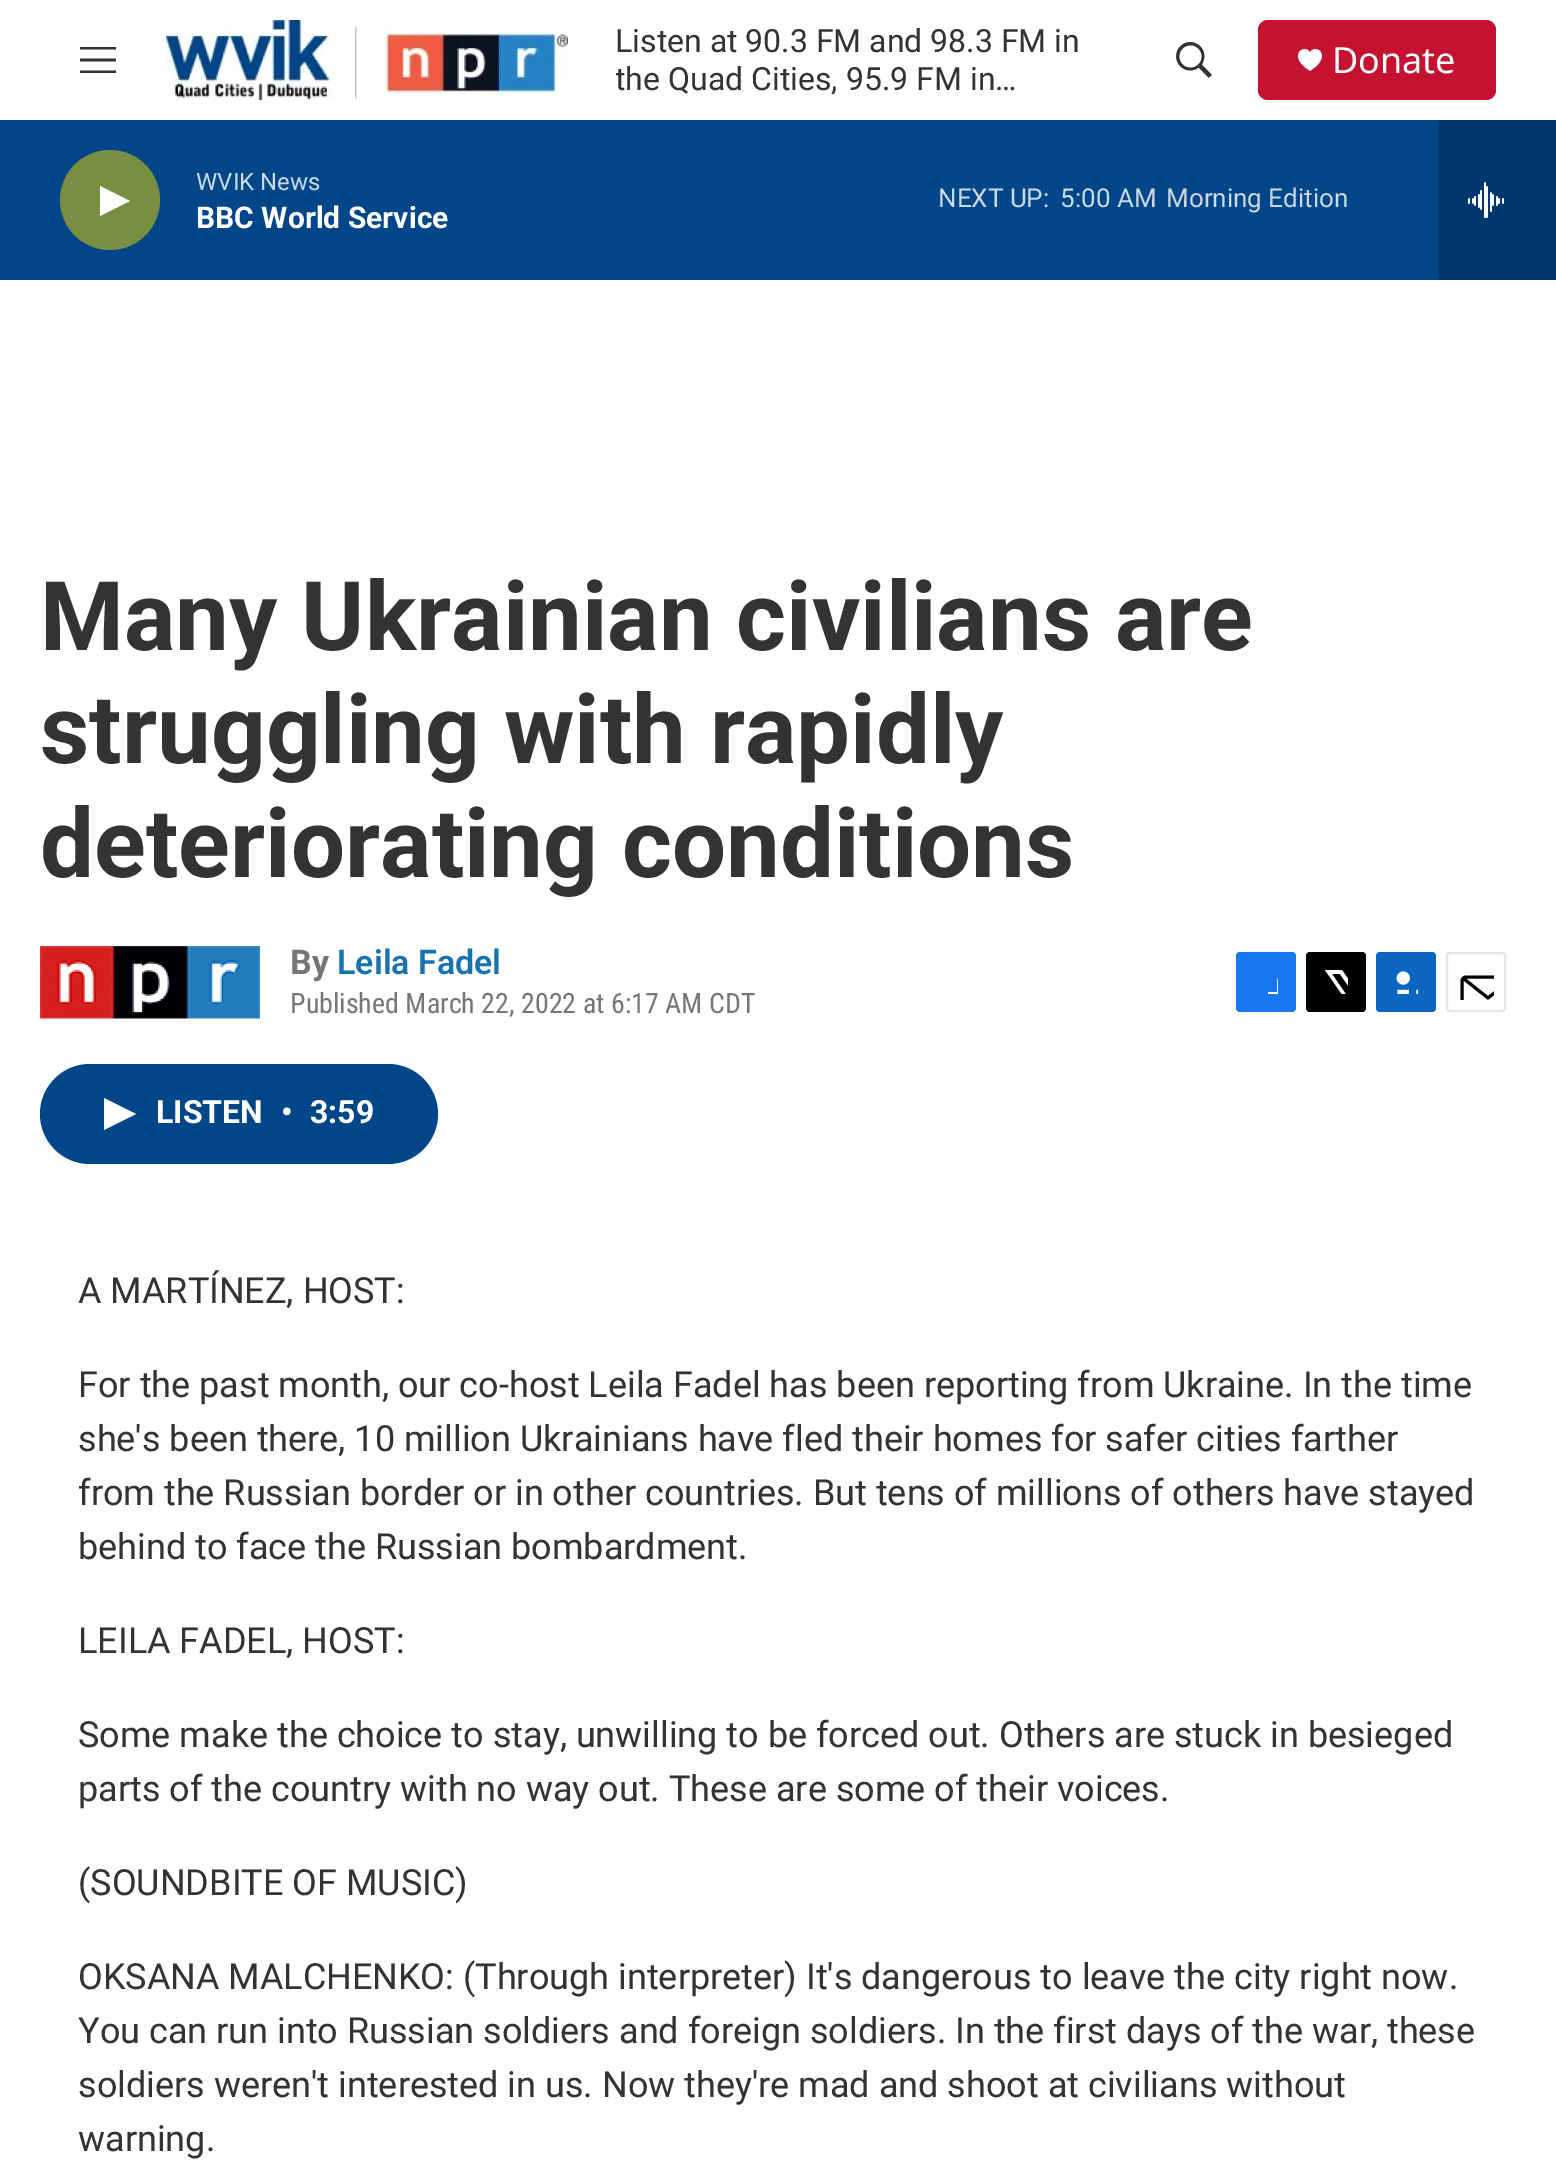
%!PS
<< /PageSize [1556 2168] >> setpagedevice
/mt/moveto load def
/li/lineto load def
/ct/curveto load def
/cp/closepath load def
/fl/fill load def
/st/stroke load def
/gs/gsave load def
/gr/grestore load def
/lw/setlinewidth load def
/co { dup -16 bitshift 255 div exch dup -8 bitshift 255 and 255 div exch 255 and 255 div setrgbcolor } def
/fn { [ exch dup neg 0 0 3 -1 roll 0 0 ] selectfont } def
/tx { co fn moveto show } def
/bx { co rectfill } def
/ci { newpath 0 360 arc closepath } def
/rr { 5 dict begin { /r /h /w /y /x } { exch def } forall
  x r add y moveto x w add y 2 copy h add r arct x w add y h add x 1 index r arct
  x y h add x y r arct x y 2 copy exch w add exch r arct closepath end } def
/im { 5 dict begin { /h /w /y /x /name } { exch def } forall
  gsave x y translate w h scale
  w h 8 [w 0 0 h 0 0] name (r) file false 3 colorimage grestore end } def
0 2168 translate 1 -1 scale
4 setmiterlimit
0 0 1556 2168 16#FFFFFF bx
16#333333 co
80 61.5 mt 80 58.5 li 116 58.5 li 116 61.5 li cp 80 49.5 mt 80 47 li 116 47 li 116 49.5 li cp 80 73 mt 80 70.5 li 116 70.5 li 116 73 li cp eofill
(media/1.raw) 166 20 402 80 im
(media/2.raw) 1176 42 36 36 im
16#C41230 co
1258 20 238 80 10 rr fl
(media/3.raw) 1298 49 24 22 im
0 120 1438 160 16#004688 bx
16#7A8E41 co
110 200 50 ci fl
16#FFFFFF co
100 186 mt 130 201 li 100 216 li cp fl
1438 120 118 160 16#00386D bx
(media/4.raw) 1468 182 36 36 im
(media/5.raw) 40 946 220 74 im
16#1778F2 co
1236 952 60 60 4 rr fl
gs
1254 970 24 24 rectclip
16#FFFFFF co
1287 1012 mt 1277 1012 li 1277 1002 li 1268 1002 li 1268 992 li 1277 992 li 1277 981 li 1279 972 1288 970 1296 971 ct 1296 980 li 1285 980 1287 983 1287 992 ct 1296 992 li 1296 997 li 1295 1002 li 1287 1002 li cp fl
gr
16#000000 co
1306 952 60 60 4 rr fl
gs
1324 970 24 24 rectclip
16#FFFFFF co
1360 995 mt 1366 1004 li 1366 1006 1367 1009 1365 1010 ct 1340 974 li 1332 974 li 1358 1012 li 1353 1012 li 1350 1007 li 1346 1012 li 1340 1012 li 1348 1003 li 1325 970 li 1342 970 li 1357 992 li 1366 982 li 1366 988 li cp fl
gr
16#0A66C1 co
1376 952 60 60 4 rr fl
(media/6.raw) 1396 971 22 23 im
16#E6E6E6 co
2 lw
1447 953 58 58 3 rr st
gs
1458 964 36 36 rectclip
16#000000 co
3 lw
1 setlinecap
1 setlinejoin
1514 1008 mt 1514 1010 1512 1011.5 1510 1011.5 ct 1466 1011.5 li 1464 1011.5 1462 1010 1462 1008 ct 1462 981 li 1462 979 1464 977 1466 977 ct 1510 977 li 1512 977 1514 979 1514 981 ct cp 1512.5 978.5 mt 1488 998 li 1463.5 978.5 li st
gr
16#004688 co
40 1064 398 100 50 rr fl
16#FFFFFF co
104 1098 mt 136 1114 li 104 1130 li cp fl
(Listen at 90.3 FM and 98.3 FM in) 615 52 /Roboto-Regular 32 16#333333 tx
gs
616 22 486 76 rectclip
(the Quad Cities,) 615 90 /Roboto-Regular 32 16#333333 tx
gr
(95.9 FM in…) 846 90 /Roboto-Regular 32 16#333333 tx
(Donate) 1332 73 /NotoSans-Regular 36 16#FFFFFF tx
(WVIK News) 196 190 /Roboto-Regular 24 16#CCDAE7 tx
(BBC World Service) 196 228 /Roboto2-Bold 30 16#FFFFFF tx
(NEXT UP:) 938 207 /Roboto-Regular 26 16#CCDAE7 tx
(5:00 AM) 1060 207 /Roboto-Regular 26 16#CCDAE7 tx
(Morning Edition) 1166 207 /Roboto-Regular 26 16#CCDAE7 tx
(Many Ukrainian civilians are) 40 650 /Roboto-Bold 96 16#333333 tx
(struggling with rapidly) 40 763 /Roboto-Bold 96 16#333333 tx
(deteriorating conditions) 40 877 /Roboto-Bold 96 16#333333 tx
(By) 290 974 /Roboto-Bold 34 16#767676 tx
(Leila Fadel) 337 974 /Roboto-SemiBold 34 16#1772B0 tx
(Published March 22, 2022 at 6:17 AM CDT) 290 1013 /RobotoCondensed-Regular 28 16#767676 tx
(LISTEN) 156 1123 /Roboto2-Bold 32 16#FFFFFF tx
(•) 281 1123 /Roboto2-Bold 32 16#FFFFFF tx
(3:59) 310 1123 /Roboto2-Bold 32 16#FFFFFF tx
(A MARTÍNEZ, HOST:) 78 1303 /Roboto-Regular 36 16#333333 tx
(For the past month, our co-host Leila Fadel has been reporting from Ukraine. In the time) 78 1397 /Roboto-Regular 36 16#333333 tx
(she's been there, 10 million Ukrainians have fled their homes for safer cities farther) 78 1451 /Roboto-Regular 36 16#333333 tx
(from the Russian border or in other countries. But tens of millions of others have stayed) 78 1505 /Roboto-Regular 36 16#333333 tx
(behind to face the Russian bombardment.) 78 1559 /Roboto-Regular 36 16#333333 tx
(LEILA FADEL, HOST:) 78 1653 /Roboto-Regular 36 16#333333 tx
(Some make the choice to stay, unwilling to be forced out. Others are stuck in besieged) 78 1747 /Roboto-Regular 36 16#333333 tx
(parts of the country with no way out. These are some of their voices.) 78 1801 /Roboto-Regular 36 16#333333 tx
(\(SOUNDBITE OF MUSIC\)) 78 1895 /Roboto-Regular 36 16#333333 tx
(OKSANA MALCHENKO: \(Through interpreter\) It's dangerous to leave the city right now.) 78 1989 /Roboto-Regular 36 16#333333 tx
(You can run into Russian soldiers and foreign soldiers. In the first days of the war, these) 78 2043 /Roboto-Regular 36 16#333333 tx
(soldiers weren't interested in us. Now they're mad and shoot at civilians without) 78 2097 /Roboto-Regular 36 16#333333 tx
(warning.) 78 2151 /Roboto-Regular 36 16#333333 tx
showpage
